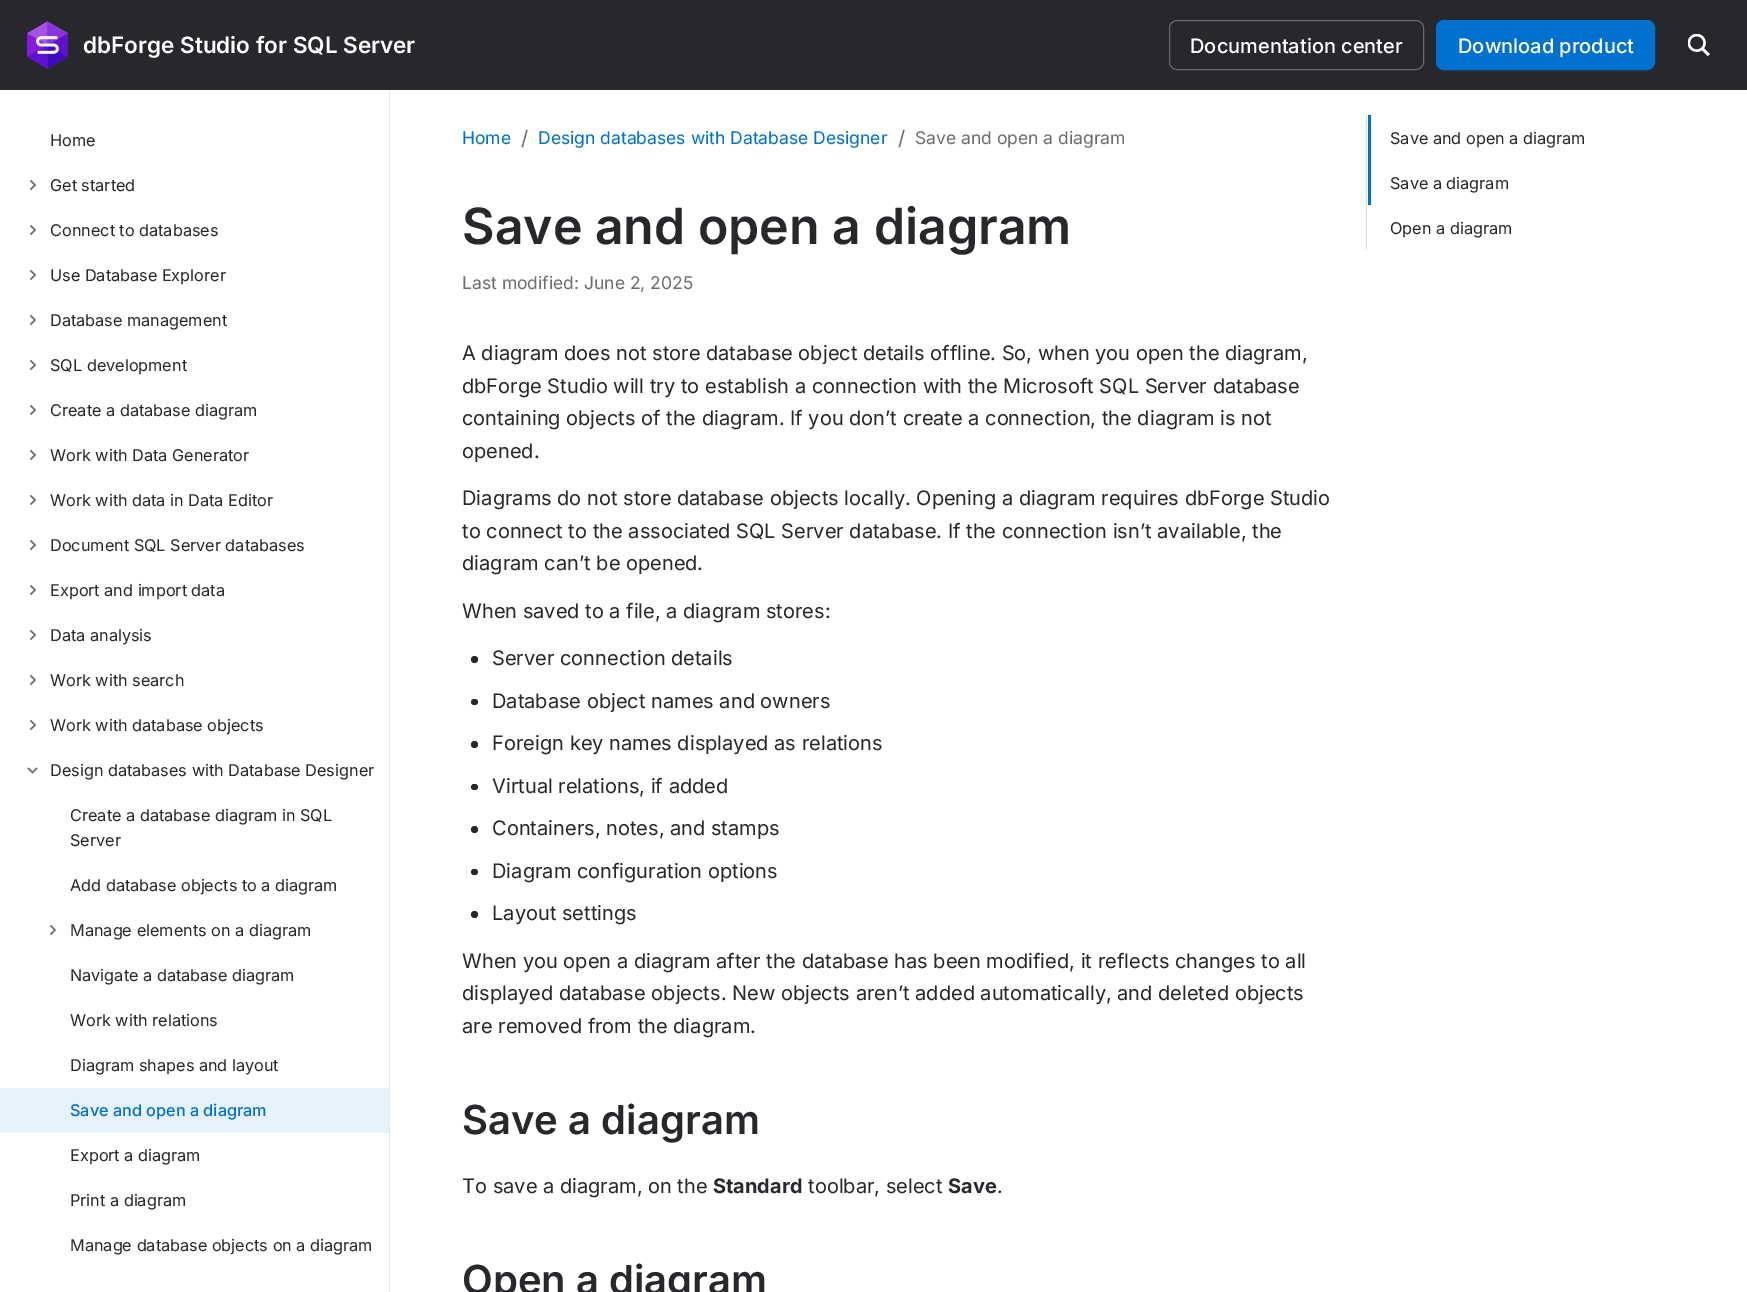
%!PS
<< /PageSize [1747 1292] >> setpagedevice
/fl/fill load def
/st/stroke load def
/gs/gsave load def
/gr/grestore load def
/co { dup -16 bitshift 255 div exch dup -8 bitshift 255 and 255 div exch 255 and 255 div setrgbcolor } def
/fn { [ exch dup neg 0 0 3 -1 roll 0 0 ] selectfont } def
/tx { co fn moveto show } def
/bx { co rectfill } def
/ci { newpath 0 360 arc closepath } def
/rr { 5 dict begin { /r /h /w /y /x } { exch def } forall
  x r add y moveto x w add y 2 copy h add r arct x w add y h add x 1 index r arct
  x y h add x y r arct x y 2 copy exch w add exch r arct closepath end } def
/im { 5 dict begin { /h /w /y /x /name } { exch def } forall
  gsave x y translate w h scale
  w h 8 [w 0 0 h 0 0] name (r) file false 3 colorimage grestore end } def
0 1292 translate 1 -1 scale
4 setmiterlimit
0 0 1747 1292 16#FFFFFF bx
0 0 1747 90 16#27282C bx
(media/1.raw) 27 21 41 48 im
16#68696B co
1169.5 20.5 254 49 7.5 rr st
16#0071CE co
1436.5 20.5 218 49 7.5 rr gs fl gr
st
(media/2.raw) 1688 34 22 22 im
389 90 1 1202 16#E6E7EB bx
(media/3.raw) 30 180 7 10 im
(media/3.raw) 30 225 7 10 im
(media/3.raw) 30 270 7 10 im
(media/3.raw) 30 315 7 10 im
(media/3.raw) 30 360 7 10 im
(media/3.raw) 30 405 7 10 im
(media/3.raw) 30 450 7 10 im
(media/3.raw) 30 495 7 10 im
(media/3.raw) 30 540 7 10 im
(media/3.raw) 30 585 7 10 im
(media/3.raw) 30 630 7 10 im
(media/3.raw) 30 675 7 10 im
(media/3.raw) 30 720 7 10 im
(media/4.raw) 27 767 11 7 im
(media/3.raw) 50 925 7 10 im
0 1088 389 45 16#E6F1FA bx
16#27282C co
474.5 659.5 3.5 ci fl
471 699 7 6 3 rr fl
474.5 744.5 3.5 ci fl
471 784 7 6 3 rr fl
474.5 829.5 3.5 ci fl
471 869 7 6 3 rr fl
474.5 914.5 3.5 ci fl
1366 115 1 135 16#DADBE0 bx
1368 115 3 90 16#0071CE bx
(dbForge Studio for SQL Server) 83 53 /Inter-SemiBold 22.5 16#FFFFFF tx
(Documentation center) 1190 53 /Inter-Medium 20 16#FFFFFF tx
(Download product) 1458 53 /Inter-Medium 20 16#FFFFFF tx
(Home) 50 146 /Inter-Regular 16.25 16#27282C tx
(Get started) 50 191 /Inter-Regular 16.25 16#27282C tx
(Connect to databases) 50 236 /Inter-Regular 16.25 16#27282C tx
(Use Database Explorer) 50 281 /Inter-Regular 16.25 16#27282C tx
(Database management) 50 326 /Inter-Regular 16.25 16#27282C tx
(SQL development) 50 371 /Inter-Regular 16.25 16#27282C tx
(Create a database diagram) 50 416 /Inter-Regular 16.25 16#27282C tx
(Work with Data Generator) 50 461 /Inter-Regular 16.25 16#27282C tx
(Work with data in Data Editor) 50 506 /Inter-Regular 16.25 16#27282C tx
(Document SQL Server databases) 50 551 /Inter-Regular 16.25 16#27282C tx
(Export and import data) 50 596 /Inter-Regular 16.25 16#27282C tx
(Data analysis) 50 641 /Inter-Regular 16.25 16#27282C tx
(Work with search) 50 686 /Inter-Regular 16.25 16#27282C tx
(Work with database objects) 50 731 /Inter-Regular 16.25 16#27282C tx
(Design databases with Database Designer) 50 776 /Inter-Regular 16.25 16#27282C tx
(Create a database diagram in SQL) 70 821 /Inter-Regular 16.25 16#27282C tx
(Server) 70 846 /Inter-Regular 16.25 16#27282C tx
(Add database objects to a diagram) 70 891 /Inter-Regular 16.25 16#27282C tx
(Manage elements on a diagram) 70 936 /Inter-Regular 16.25 16#27282C tx
(Navigate a database diagram) 70 981 /Inter-Regular 16.25 16#27282C tx
(Work with relations) 70 1026 /Inter-Regular 16.25 16#27282C tx
(Diagram shapes and layout) 70 1071 /Inter-Regular 16.25 16#27282C tx
(Save and open a diagram) 70 1116 /Inter-Medium 16.25 16#0071CE tx
(Export a diagram) 70 1161 /Inter-Regular 16.25 16#27282C tx
(Print a diagram) 70 1206 /Inter-Regular 16.25 16#27282C tx
(Manage database objects on a diagram) 70 1251 /Inter-Regular 16.25 16#27282C tx
(Home) 462 144 /Inter-Regular 17.5 16#0071CE tx
(/) 521 145 /Inter-Regular 20 16#6A6D77 tx
(Design databases with Database Designer) 538 144 /Inter-Regular 17.5 16#0071CE tx
(/) 898 145 /Inter-Regular 20 16#6A6D77 tx
(Save and open a diagram) 915 144 /Inter-Regular 17.5 16#6A6D77 tx
(Save and open a diagram) 462 244 /Inter-SemiBold 50 16#27282C tx
(Last modified: June 2, 2025) 462 289 /Inter-Regular 17.5 16#6A6D77 tx
(A diagram does not store database object details offline. So, when you open the diagram,) 462 360 /Inter-Regular 20 16#27282C tx
(dbForge Studio will try to establish a connection with the Microsoft SQL Server database) 462 393 /Inter-Regular 20 16#27282C tx
(containing objects of the diagram. If you don’t create a connection, the diagram is not) 462 425 /Inter-Regular 20 16#27282C tx
(opened.) 462 458 /Inter-Regular 20 16#27282C tx
(Diagrams do not store database objects locally. Opening a diagram requires dbForge Studio) 462 505 /Inter-Regular 20 16#27282C tx
(to connect to the associated SQL Server database. If the connection isn’t available, the) 462 538 /Inter-Regular 20 16#27282C tx
(diagram can’t be opened.) 462 570 /Inter-Regular 20 16#27282C tx
(When saved to a file, a diagram stores:) 462 618 /Inter-Regular 20 16#27282C tx
(Server connection details) 492 665 /Inter-Regular 20 16#27282C tx
(Database object names and owners) 492 708 /Inter-Regular 20 16#27282C tx
(Foreign key names displayed as relations) 492 750 /Inter-Regular 20 16#27282C tx
(Virtual relations, if added) 492 793 /Inter-Regular 20 16#27282C tx
(Containers, notes, and stamps) 492 835 /Inter-Regular 20 16#27282C tx
(Diagram configuration options) 492 878 /Inter-Regular 20 16#27282C tx
(Layout settings) 492 920 /Inter-Regular 20 16#27282C tx
(When you open a diagram after the database has been modified, it reflects changes to all) 462 968 /Inter-Regular 20 16#27282C tx
(displayed database objects. New objects aren’t added automatically, and deleted objects) 462 1000 /Inter-Regular 20 16#27282C tx
(are removed from the diagram.) 462 1033 /Inter-Regular 20 16#27282C tx
(Save a diagram) 462 1134 /Inter-SemiBold 40 16#27282C tx
(To save a diagram, on the) 462 1193 /Inter-Regular 20 16#27282C tx
(Standard) 713 1193 /Inter-Bold 20 16#27282C tx
(toolbar, select) 808 1193 /Inter-Regular 20 16#27282C tx
(Save) 948 1193 /Inter-Bold 20 16#27282C tx
(.) 997 1193 /Inter-Regular 20 16#27282C tx
(Open a diagram) 462 1294 /Inter-SemiBold 40 16#27282C tx
(Save and open a diagram) 1390 144 /Inter-Regular 16.25 16#27282C tx
(Save a diagram) 1390 189 /Inter-Regular 16.25 16#27282C tx
(Open a diagram) 1390 234 /Inter-Regular 16.25 16#27282C tx
showpage
